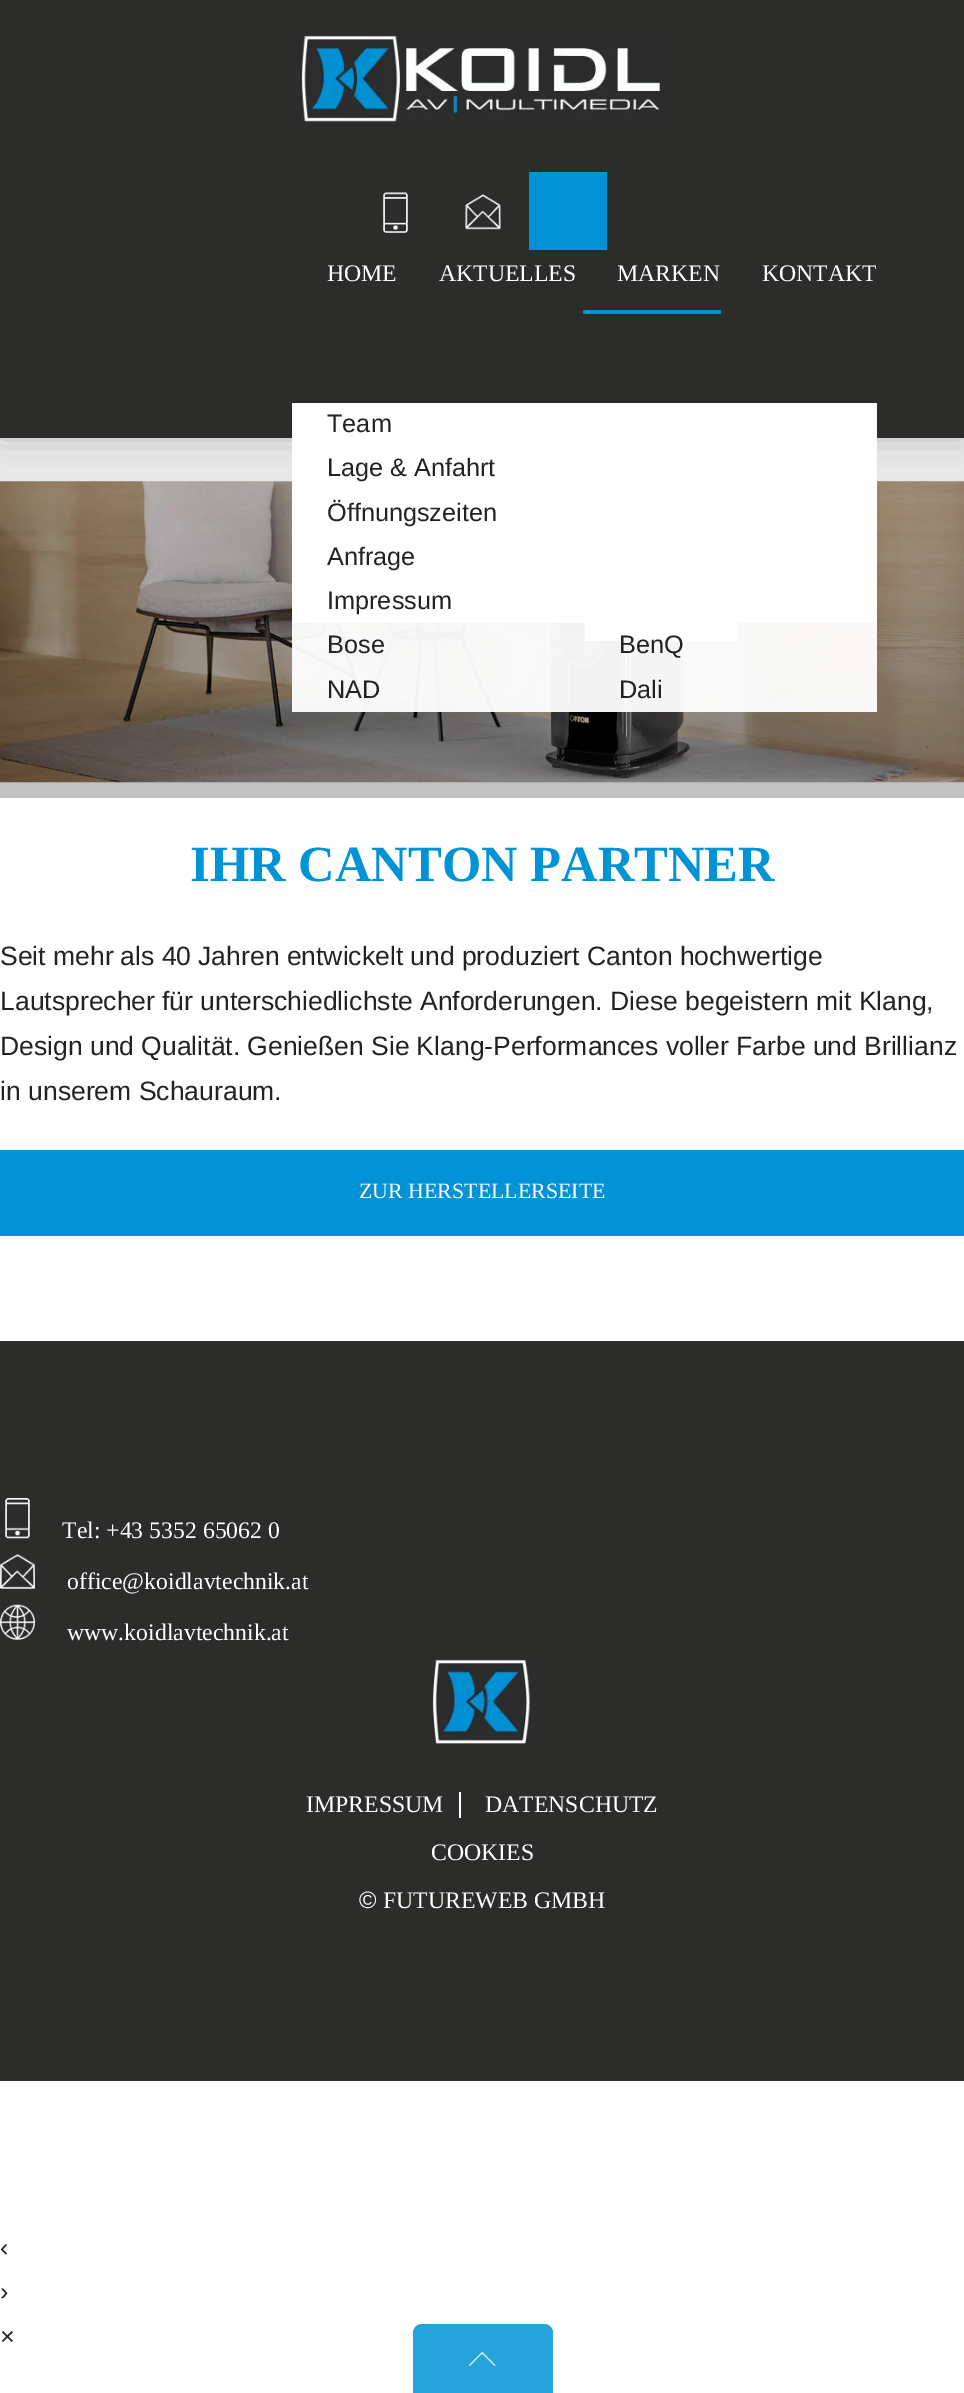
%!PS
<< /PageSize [964 2393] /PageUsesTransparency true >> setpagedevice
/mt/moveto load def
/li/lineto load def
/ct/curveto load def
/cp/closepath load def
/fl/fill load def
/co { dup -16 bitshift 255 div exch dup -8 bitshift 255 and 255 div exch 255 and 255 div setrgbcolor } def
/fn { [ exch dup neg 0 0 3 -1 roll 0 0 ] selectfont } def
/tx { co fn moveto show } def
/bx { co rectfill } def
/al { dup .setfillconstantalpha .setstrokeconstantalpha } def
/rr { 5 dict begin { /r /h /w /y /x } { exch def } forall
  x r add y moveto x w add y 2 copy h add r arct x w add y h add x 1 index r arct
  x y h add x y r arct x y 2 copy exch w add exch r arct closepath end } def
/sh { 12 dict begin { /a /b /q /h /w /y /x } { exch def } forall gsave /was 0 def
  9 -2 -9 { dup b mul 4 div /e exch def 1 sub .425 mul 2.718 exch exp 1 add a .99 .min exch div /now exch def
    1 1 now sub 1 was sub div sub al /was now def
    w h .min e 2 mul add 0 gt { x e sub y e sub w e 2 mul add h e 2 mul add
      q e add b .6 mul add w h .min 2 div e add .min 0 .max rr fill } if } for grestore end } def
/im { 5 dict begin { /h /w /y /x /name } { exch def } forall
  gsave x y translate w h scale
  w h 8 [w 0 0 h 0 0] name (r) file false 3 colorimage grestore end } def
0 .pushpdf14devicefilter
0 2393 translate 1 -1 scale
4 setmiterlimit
0 0 964 2393 16#FFFFFF bx
(media/5.raw) 0 481 964 302 im
(media/4.raw) 0 438 964 360 im
16#000000 co
0 0 964 438 0 16.5 .2 sh
0 0 964 438 16#2C2C2B bx
(media/1.raw) 301 35 359 87 im
(media/2.raw) 383 192 25 41 im
(media/3.raw) 465 194 36 36 im
529 172 78 78 16#0193D6 bx
0.95 al
292 403 585 309 16#FFFFFF bx
1 al
585 560 152 81 16#FFFFFF bx
0.95 al
292 403 585 220 16#FFFFFF bx
1 al
583 310 138 4 16#0193D6 bx
0 1150 964 86 16#0193D6 bx
0 1341 964 740 16#2C2C2B bx
(media/6.raw) 5 1498 25 41 im
(media/7.raw) 0 1554 35 35 im
(media/8.raw) 0 1604 35 36 im
(media/9.raw) 432 1659 99 85 im
459 1792 2 26 16#FFFFFF bx
16#27A3DC co
422 2324 mt 544 2324 li 549 2324 553 2328 553 2333 ct 553 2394 li 413 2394 li 413 2333 li 413 2328 417 2324 422 2324 ct cp fl
(media/10.raw) 468 2352 28 14 im
(HOME) 327 281 /LiberationSerif-Regular 23.75 16#FFFFFF tx
(KONTAKT) 762 281 /LiberationSerif-Regular 23.75 16#FFFFFF tx
(Team) 327 432 /LiberationSans-Regular 25.25 16#222222 tx
(Lage & Anfahrt) 327 476 /LiberationSans-Regular 25.25 16#222222 tx
(Öffnungszeiten) 327 521 /LiberationSans-Regular 25.25 16#222222 tx
(Anfrage) 327 565 /LiberationSans-Regular 25.25 16#222222 tx
(Impressum) 327 609 /LiberationSans-Regular 25.25 16#222222 tx
(MARKEN) 617 281 /LiberationSerif-Regular 23.75 16#FFFFFF tx
(Bose) 327 653 /LiberationSans-Regular 25.25 16#222222 tx
(BenQ) 619 653 /LiberationSans-Regular 25.25 16#222222 tx
(NAD) 327 698 /LiberationSans-Regular 25.25 16#222222 tx
(Dali) 619 698 /LiberationSans-Regular 25.25 16#222222 tx
(AKTUELLES) 439 281 /LiberationSerif-Regular 23.75 16#FFFFFF tx
(IHR CANTON PARTNER) 190 881 /LiberationSerif-Bold 50.6 16#0193D6 tx
/LiberationSans-Regular 26.55 fn
16#222222 co
0 965 mt -.25 0 32 (Seit mehr als 40 Jahren entwickelt und produziert Canton hochwertige) widthshow
0 1010 mt -.25 0 32 (Lautsprecher für unterschiedlichste Anforderungen. Diese begeistern mit Klang,) widthshow
0 1055 mt -.25 0 32 (Design und Qualität. Genießen Sie Klang-Performances voller Farbe und Brillianz) widthshow
(in unserem Schauraum.) 0 1100 /LiberationSans-Regular 26.55 16#222222 tx
(ZUR HERSTELLERSEITE) 359 1198 /LiberationSerif-Regular 21.9 16#FFFFFF tx
(Tel: +43 5352 65062 0) 62 1538 /LiberationSerif-Regular 23.75 16#FFFFFF tx
(office@koidlavtechnik.at) 67 1589 /LiberationSerif-Regular 23.75 16#FFFFFF tx
(www.koidlavtechnik.at) 67 1640 /LiberationSerif-Regular 23.75 16#FFFFFF tx
(IMPRESSUM) 306 1812 /LiberationSerif-Regular 23.75 16#FFFFFF tx
(DATENSCHUTZ) 485 1812 /LiberationSerif-Regular 23.75 16#FFFFFF tx
(COOKIES) 431 1860 /LiberationSerif-Regular 23.75 16#FFFFFF tx
(©) 359 1908 /LiberationSans-Regular 23.75 16#FFFFFF tx
(FUTUREWEB GMBH) 383 1908 /LiberationSerif-Regular 23.75 16#FFFFFF tx
(‹) 0 2256 /LiberationSans-Regular 25.25 16#222222 tx
(›) 0 2300 /LiberationSans-Regular 25.25 16#222222 tx
(×) 0 2345 /LiberationSans-Regular 25.25 16#222222 tx
.poppdf14devicefilter showpage
